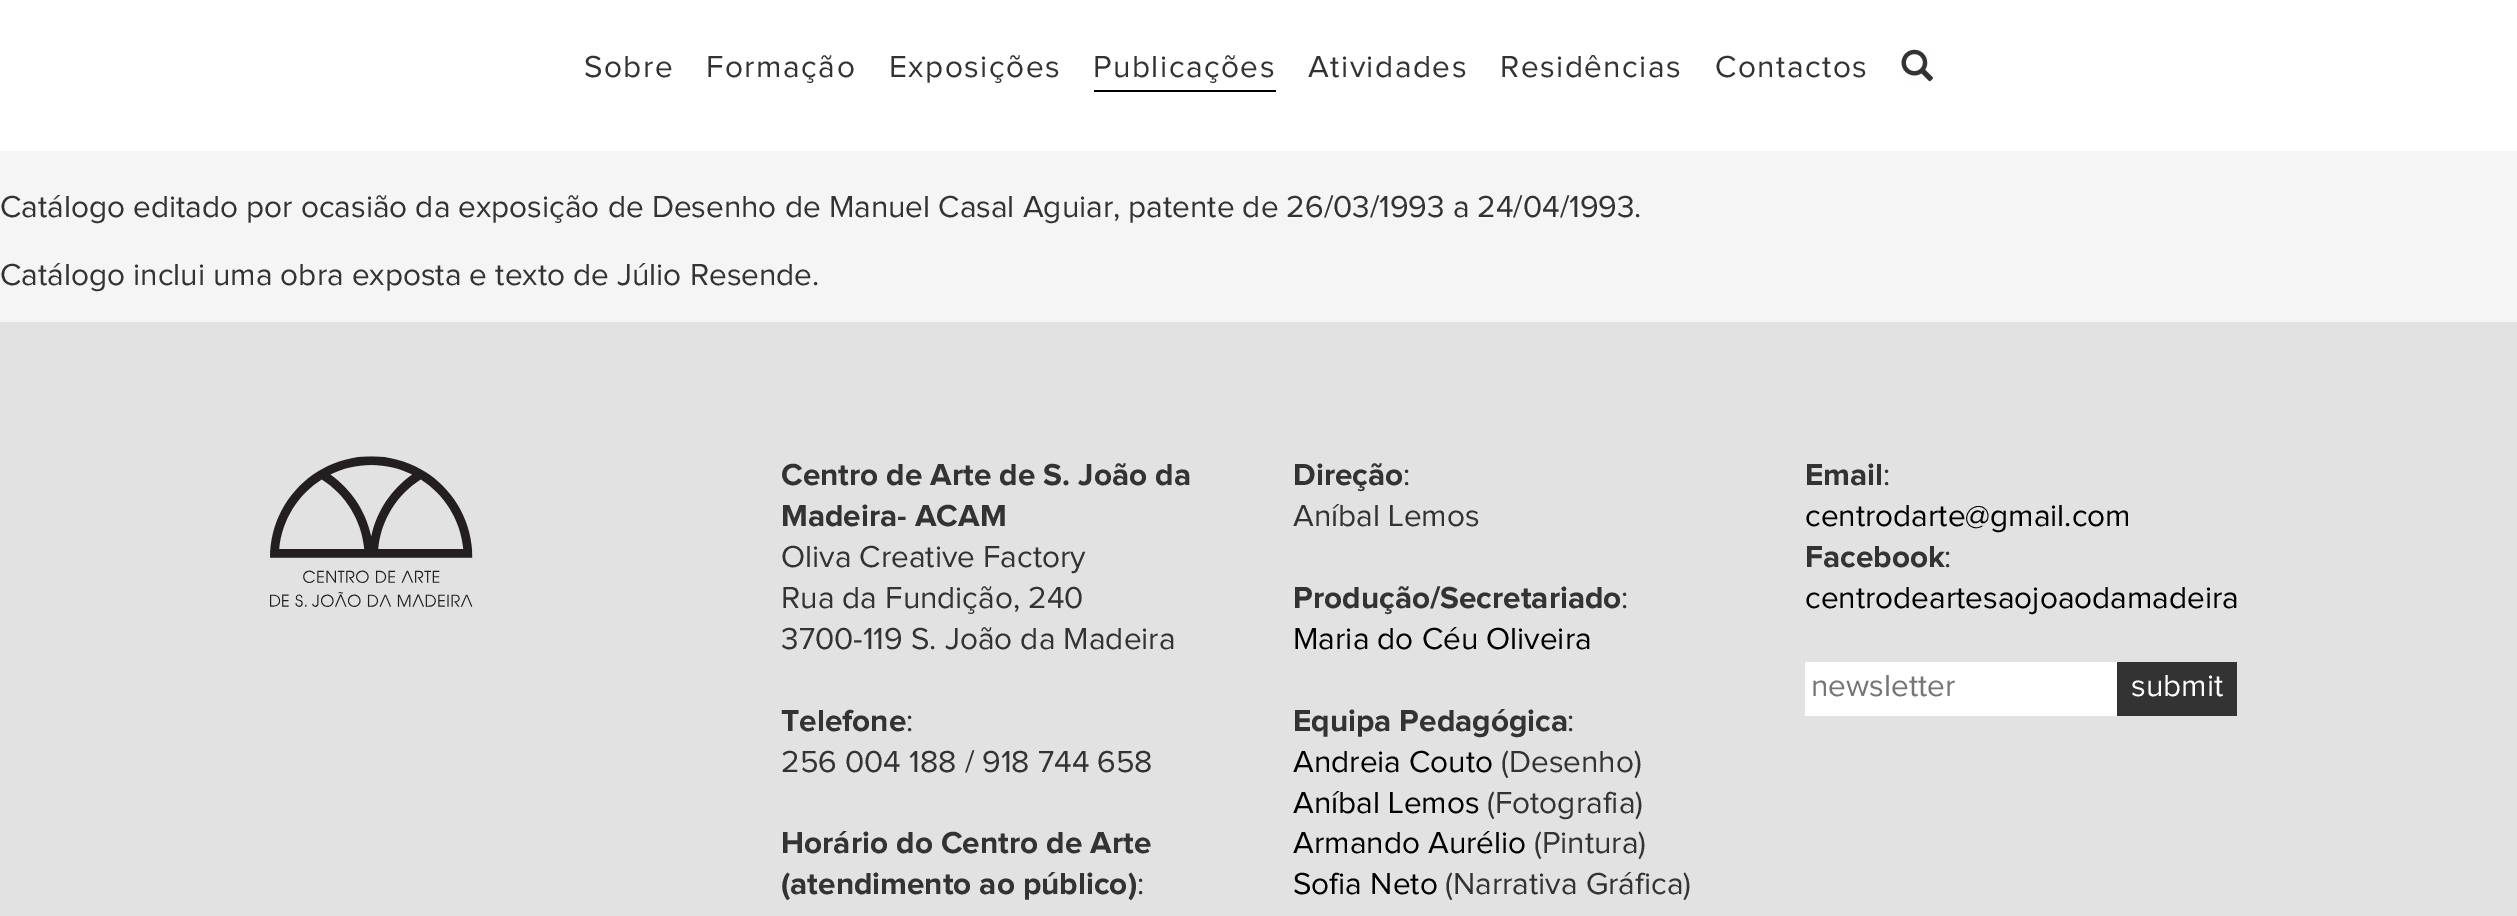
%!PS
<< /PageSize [2517 916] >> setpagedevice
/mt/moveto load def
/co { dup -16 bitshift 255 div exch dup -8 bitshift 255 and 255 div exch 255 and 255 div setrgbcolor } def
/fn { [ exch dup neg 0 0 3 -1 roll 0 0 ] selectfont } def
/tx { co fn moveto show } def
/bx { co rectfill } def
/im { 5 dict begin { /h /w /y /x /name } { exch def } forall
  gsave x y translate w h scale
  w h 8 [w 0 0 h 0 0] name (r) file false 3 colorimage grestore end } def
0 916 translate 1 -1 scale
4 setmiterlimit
0 0 2517 916 16#E2E2E2 bx
0 0 2517 151 16#FFFFFF bx
1094 90 182 2 16#000000 bx
(media/1.raw) 1901 49 32 33 im
0 151 2517 171 16#F5F5F5 bx
(media/2.raw) 270 456 203 151 im
1805 662 312 54 16#FFFFFF bx
2117 662 120 54 16#333333 bx
/ProximaNova-Regular 31.5 fn
584 77 mt 1.5 0 (Sobre) ashow
706 77 mt 1.5 0 (Formação) ashow
889 77 mt 1.5 0 (Exposições) ashow
1093 77 mt 1.5 0 (Publicações) ashow
1308 77 mt 1.5 0 (Atividades) ashow
1500 77 mt 1.5 0 (Residências) ashow
1715 77 mt 1.5 0 (Contactos) ashow
(Catálogo editado por ocasião da exposição de Desenho de Manuel Casal Aguiar, patente de 26/03/1993 a 24/04/1993.) 0 217 /ProximaNova-Regular 31.5 16#333333 tx
(Catálogo inclui uma obra exposta e texto de Júlio Resende.) 0 285 /ProximaNova-Regular 31.5 16#333333 tx
(Centro de Arte de S. João da) 781 485 /ProximaNova-Bold 31.5 16#333333 tx
(Madeira- ACAM) 781 526 /ProximaNova-Bold 31.5 16#333333 tx
(Oliva Creative Factory) 781 567 /ProximaNova-Regular 31.5 16#333333 tx
(Rua da Fundição, 240) 781 608 /ProximaNova-Regular 31.5 16#333333 tx
(3700-119 S. João da Madeira) 781 649 /ProximaNova-Regular 31.5 16#333333 tx
(Telefone) 781 731 /ProximaNova-Bold 31.5 16#333333 tx
(:) 906 731 /ProximaNova-Regular 31.5 16#333333 tx
(256 004 188 / 918 744 658) 781 772 /ProximaNova-Regular 31.5 16#333333 tx
(Horário do Centro de Arte) 781 853 /ProximaNova-Bold 31.5 16#333333 tx
(\(atendimento ao público\)) 781 894 /ProximaNova-Bold 31.5 16#333333 tx
(:) 1137 894 /ProximaNova-Regular 31.5 16#333333 tx
(Direção) 1293 485 /ProximaNova-Bold 31.5 16#333333 tx
(:) 1403 485 /ProximaNova-Regular 31.5 16#333333 tx
(Aníbal Lemos) 1293 526 /ProximaNova-Regular 31.5 16#333333 tx
(Produção/Secretariado) 1293 608 /ProximaNova-Bold 31.5 16#333333 tx
(:) 1621 608 /ProximaNova-Regular 31.5 16#333333 tx
(Maria do Céu Oliveira) 1293 649 /ProximaNova-Regular 31.5 16#000000 tx
(Equipa Pedagógica) 1293 731 /ProximaNova-Bold 31.5 16#333333 tx
(:) 1567 731 /ProximaNova-Regular 31.5 16#333333 tx
(Andreia Couto) 1293 772 /ProximaNova-Regular 31.5 16#000000 tx
(\(Desenho\)) 1501 772 /ProximaNova-Regular 31.5 16#333333 tx
(Aníbal Lemos) 1293 813 /ProximaNova-Regular 31.5 16#000000 tx
(\(Fotografia\)) 1487 813 /ProximaNova-Regular 31.5 16#333333 tx
(Armando Aurélio) 1293 853 /ProximaNova-Regular 31.5 16#000000 tx
(\(Pintura\)) 1534 853 /ProximaNova-Regular 31.5 16#333333 tx
(Sofia Neto) 1293 894 /ProximaNova-Regular 31.5 16#000000 tx
(\(Narrativa Gráfica\)) 1445 894 /ProximaNova-Regular 31.5 16#333333 tx
(Email) 1805 485 /ProximaNova-Bold 31.5 16#333333 tx
(:) 1883 485 /ProximaNova-Regular 31.5 16#333333 tx
(centrodarte@gmail.com) 1805 526 /ProximaNova-Regular 31.5 16#000000 tx
(Facebook) 1805 567 /ProximaNova-Bold 31.5 16#333333 tx
(:) 1944 567 /ProximaNova-Regular 31.5 16#333333 tx
(centrodeartesaojoaodamadeira) 1805 608 /ProximaNova-Regular 31.5 16#000000 tx
(newsletter) 1811 696 /ProximaNova-Regular 31.5 16#757575 tx
(submit) 2131 696 /ProximaNova-Regular 31.5 16#FFFFFF tx
showpage
